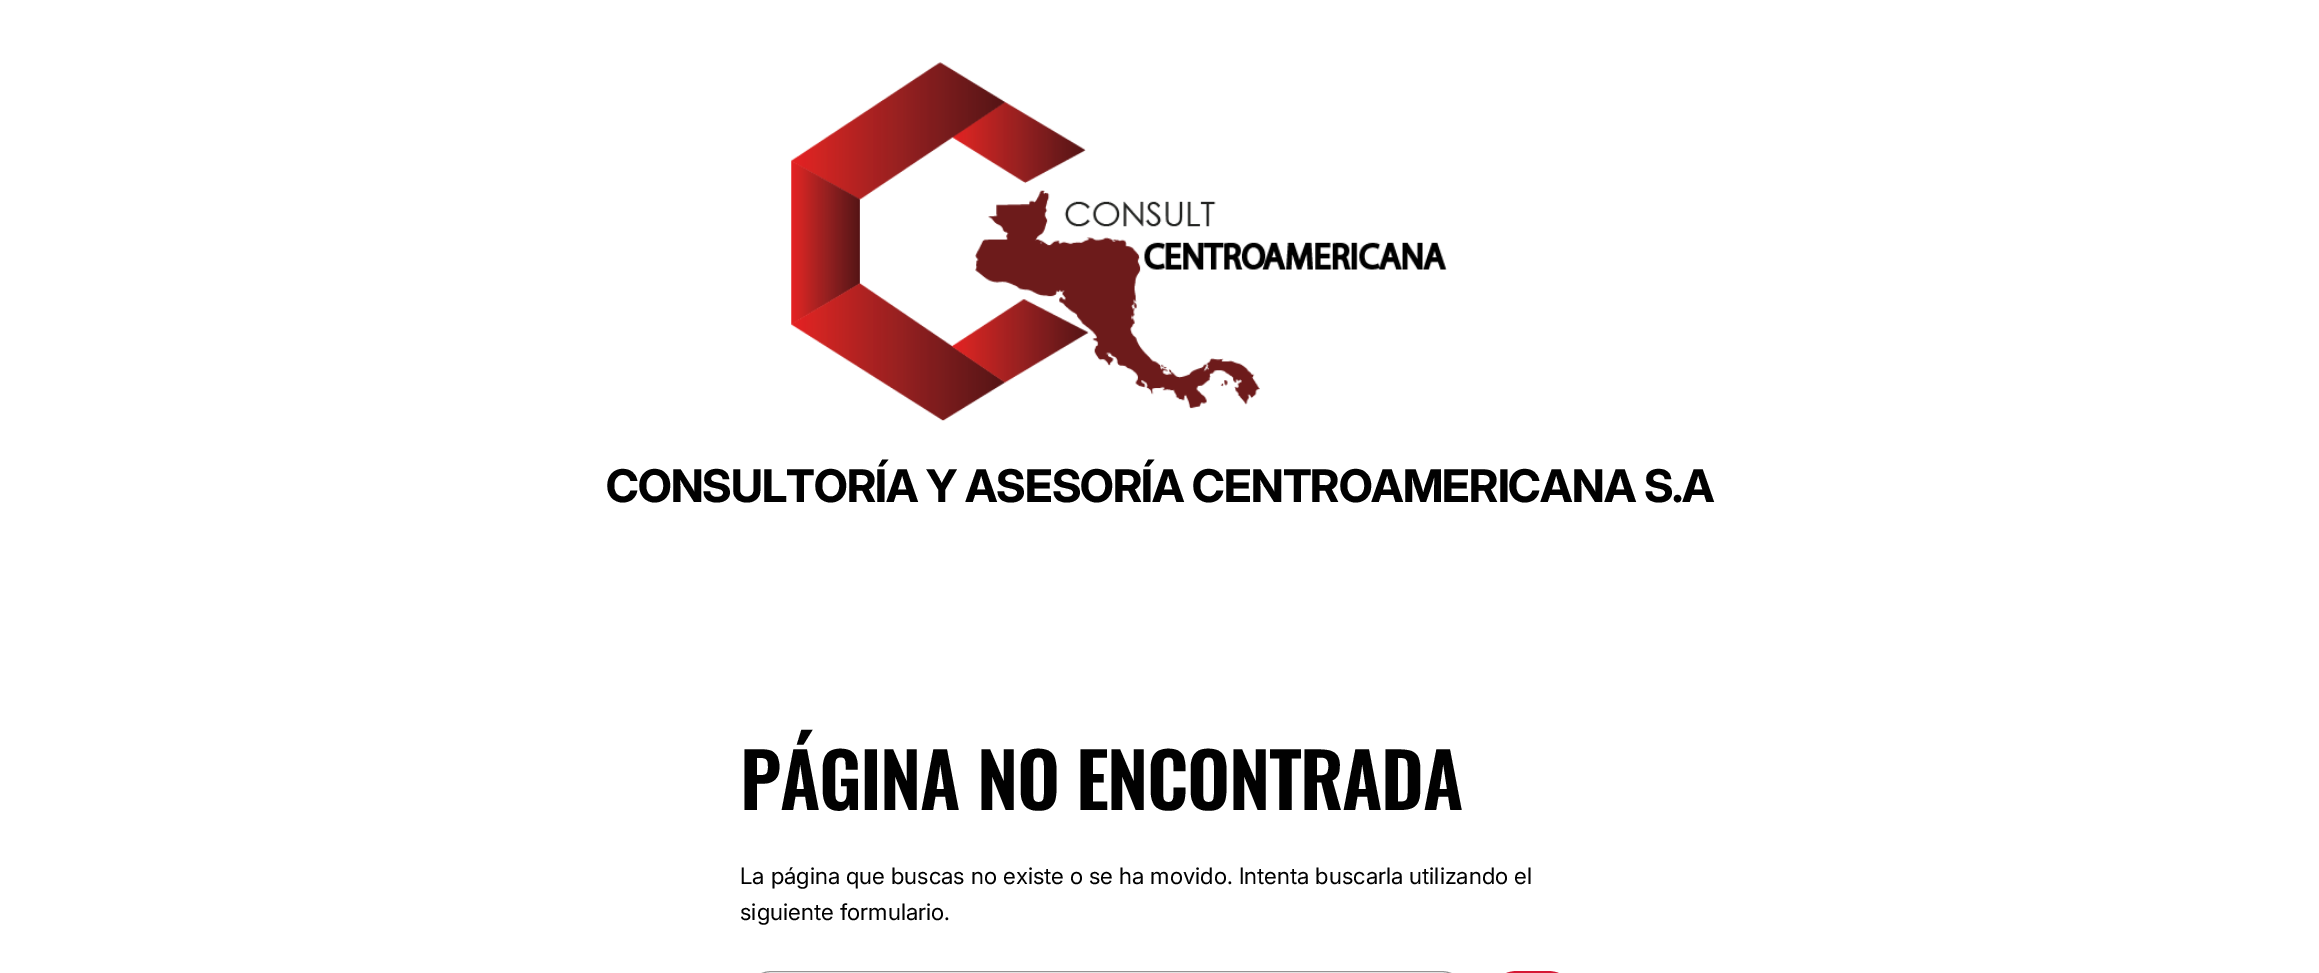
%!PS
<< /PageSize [2319 973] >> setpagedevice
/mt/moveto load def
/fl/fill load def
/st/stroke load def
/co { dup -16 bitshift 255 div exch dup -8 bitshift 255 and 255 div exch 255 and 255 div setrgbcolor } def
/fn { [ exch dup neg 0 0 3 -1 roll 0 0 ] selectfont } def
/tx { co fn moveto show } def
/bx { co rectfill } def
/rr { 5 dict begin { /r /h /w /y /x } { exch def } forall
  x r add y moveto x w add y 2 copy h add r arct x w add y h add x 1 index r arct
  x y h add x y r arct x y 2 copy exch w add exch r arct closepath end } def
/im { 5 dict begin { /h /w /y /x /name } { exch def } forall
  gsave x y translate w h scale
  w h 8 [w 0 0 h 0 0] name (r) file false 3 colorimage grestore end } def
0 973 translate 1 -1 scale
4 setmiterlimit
0 0 2319 973 16#FFFFFF bx
(media/1.raw) 791 62 656 359 im
16#949494 co
740.5 971.5 732 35 32 rr st
16#D61935 co
1485 971 95 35 32.5 rr fl
/Inter-Bold 45 fn
16#010101 co
606 502 mt -.9 0 (CONSULTORÍA Y ASESORÍA CENTROAMERICANA S.A) ashow
/Oswald-SemiBold 75 fn
740 810 mt -1.5 0 (PÁGINA NO ENCONTRADA) ashow
(La página que buscas no existe o se ha movido. Intenta buscarla utilizando el) 740 884 /Inter-Regular 22.5 16#010101 tx
(siguiente formulario.) 740 920 /Inter-Regular 22.5 16#010101 tx
showpage
